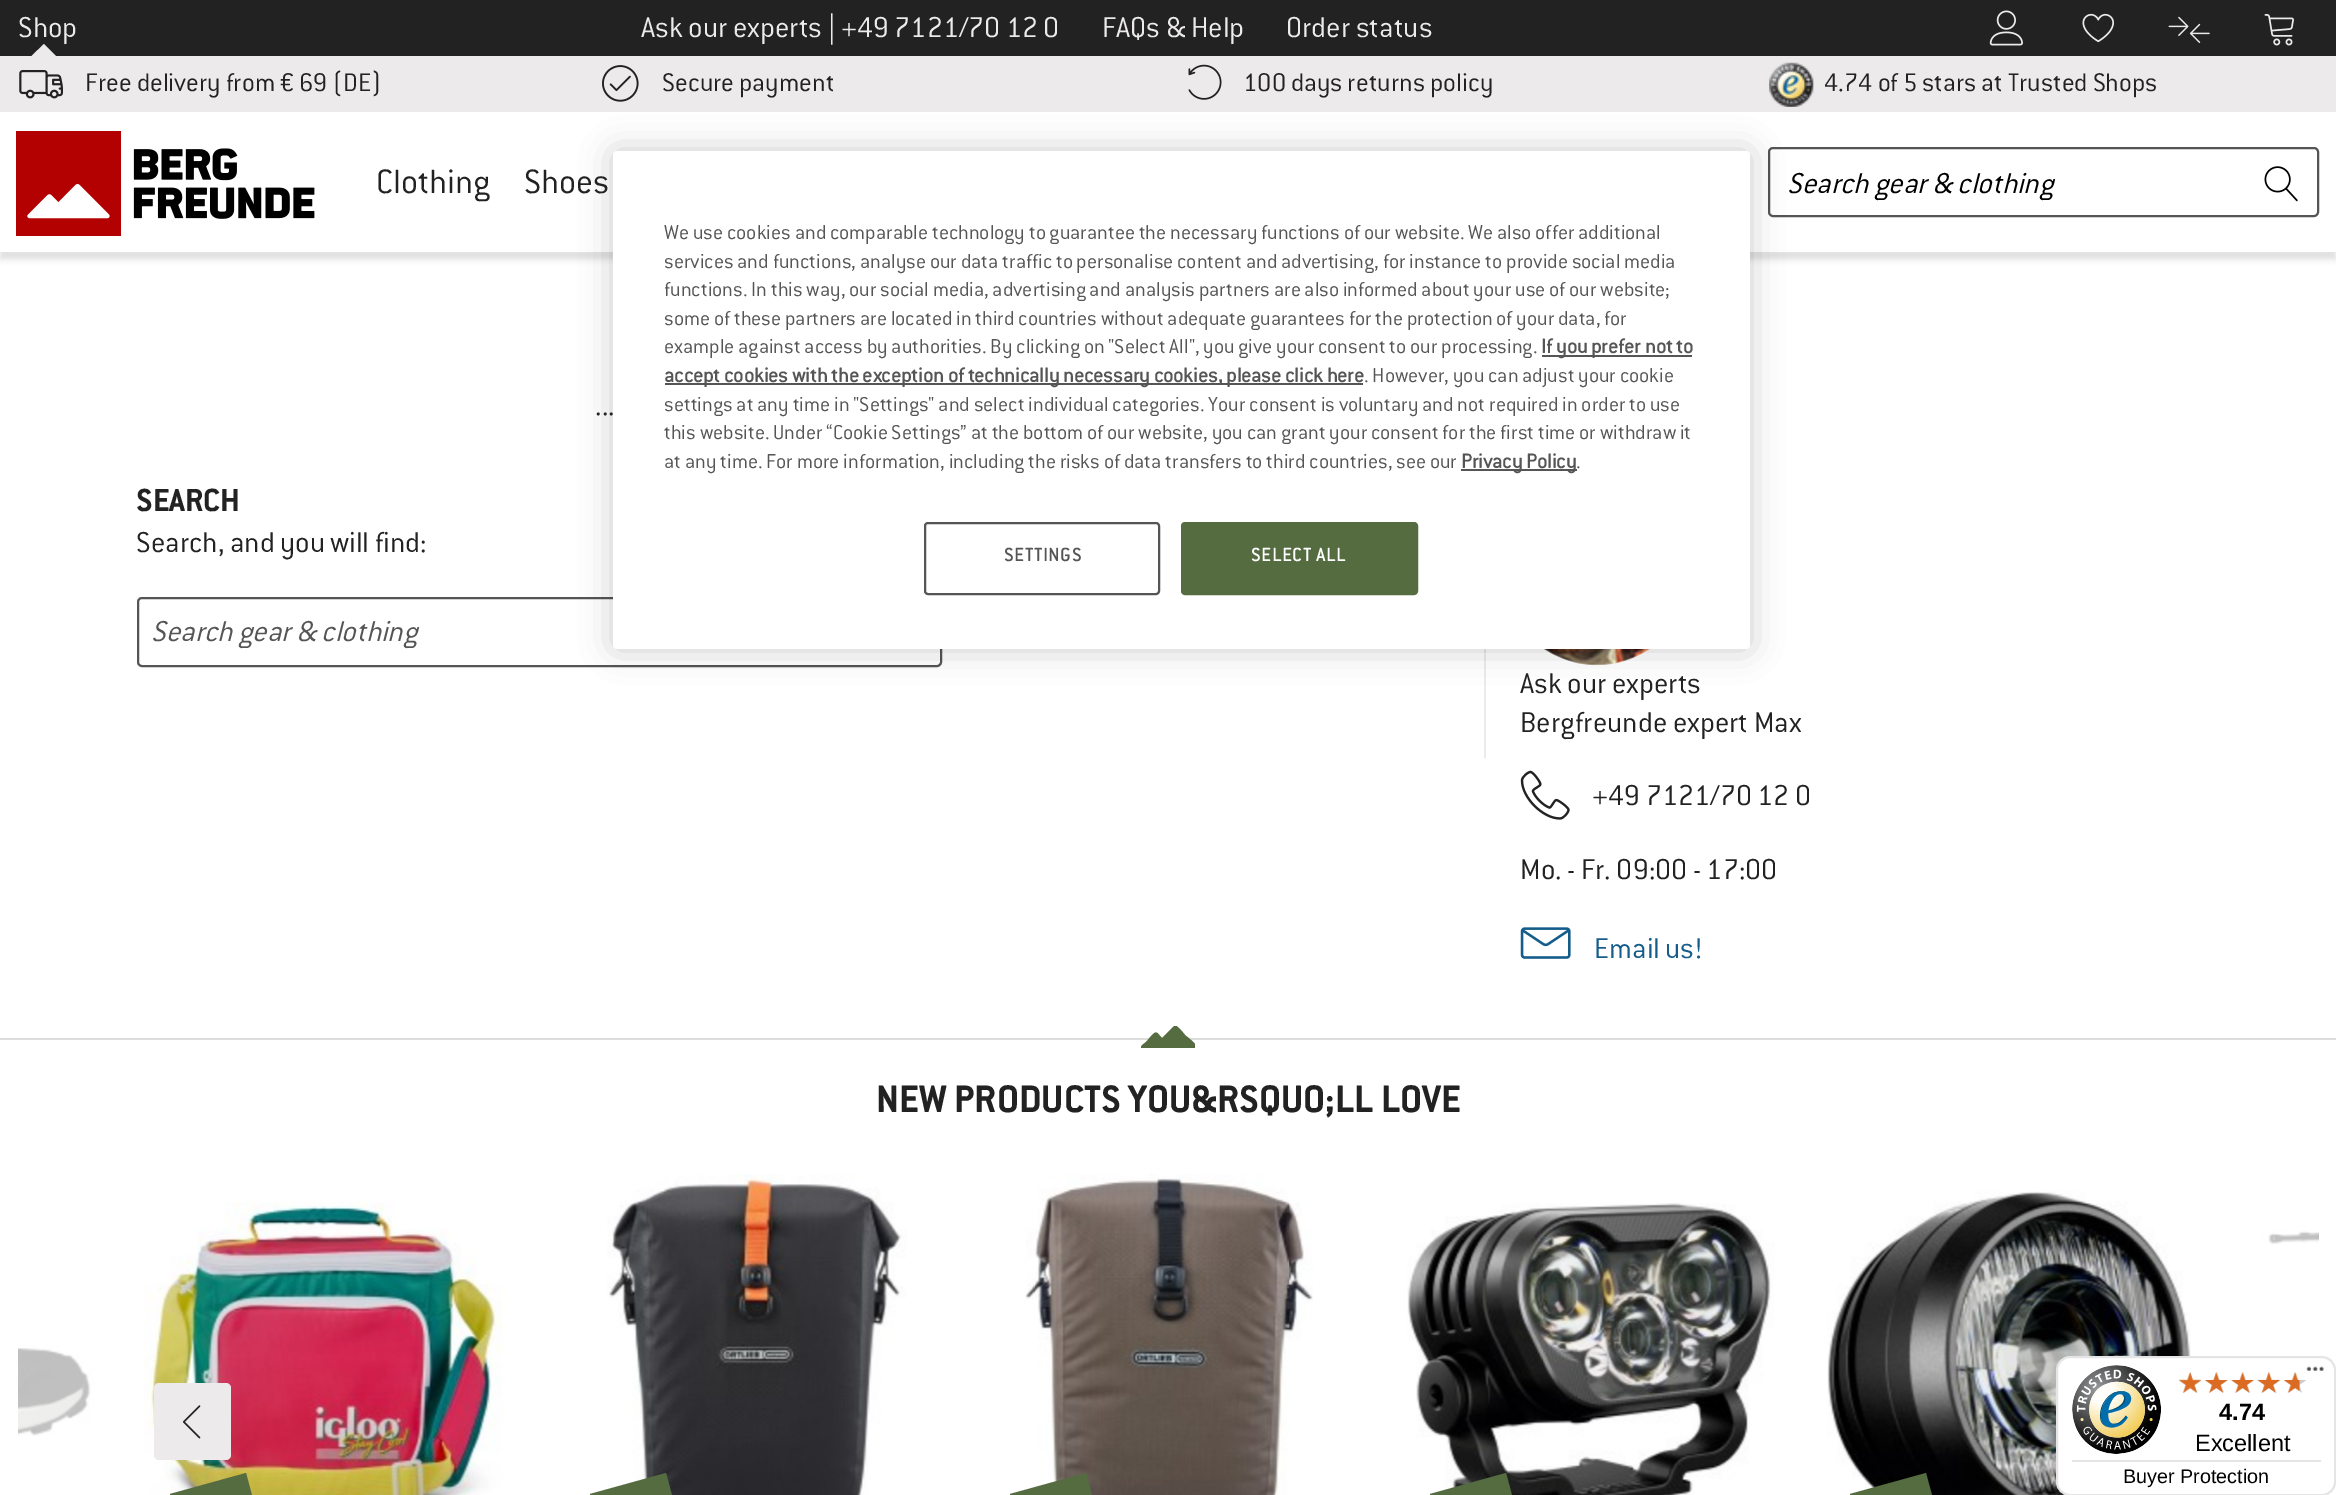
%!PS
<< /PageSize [2336 1495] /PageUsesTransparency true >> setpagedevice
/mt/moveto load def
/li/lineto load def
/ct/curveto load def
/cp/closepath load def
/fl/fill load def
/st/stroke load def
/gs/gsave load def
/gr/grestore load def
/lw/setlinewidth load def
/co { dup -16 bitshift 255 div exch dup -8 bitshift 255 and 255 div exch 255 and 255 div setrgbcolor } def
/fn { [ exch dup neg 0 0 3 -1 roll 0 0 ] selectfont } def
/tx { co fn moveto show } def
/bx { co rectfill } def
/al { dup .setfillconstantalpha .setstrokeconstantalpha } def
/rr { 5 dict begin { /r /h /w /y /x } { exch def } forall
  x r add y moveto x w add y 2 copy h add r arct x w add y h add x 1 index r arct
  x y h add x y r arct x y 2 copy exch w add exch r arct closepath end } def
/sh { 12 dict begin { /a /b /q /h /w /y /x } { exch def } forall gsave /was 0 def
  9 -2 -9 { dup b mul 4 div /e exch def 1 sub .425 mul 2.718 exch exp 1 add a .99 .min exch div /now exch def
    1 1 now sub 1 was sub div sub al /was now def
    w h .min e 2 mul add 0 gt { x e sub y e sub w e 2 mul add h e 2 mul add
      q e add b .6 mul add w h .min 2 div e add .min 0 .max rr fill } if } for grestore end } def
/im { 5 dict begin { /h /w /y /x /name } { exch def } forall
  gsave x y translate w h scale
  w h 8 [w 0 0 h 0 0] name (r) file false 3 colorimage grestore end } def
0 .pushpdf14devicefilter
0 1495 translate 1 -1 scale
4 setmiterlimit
0 0 2336 1495 16#FFFFFF bx
0 0 2336 56 16#222222 bx
16#ECEAEA co
56 56 mt 31.5 56 li 44 44 li cp fl
(media/1.raw) 1989 10 34 36 im
(media/2.raw) 2082 13 32 30 im
(media/3.raw) 2168 16 42 27 im
(media/4.raw) 2264 14 30 32 im
0 56 2336 56 16#ECEAEA bx
(media/5.raw) 19 70 44 29 im
(media/6.raw) 602 65 37 37 im
(media/7.raw) 1188 64 34 36 im
(media/8.raw) 1769 62 45 45 im
(media/9.raw) 16 131 299 105 im
16#555555 co
2 lw
1769 148 549 68 4 rr st
(media/10.raw) 2264 166 34 36 im
gs
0 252 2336 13 rectclip
16#C6C6C6 co
0 250 2336 9 0 3.5 .6 sh
gr
138 598 803 68 4 rr st
1484 649 2 109 16#ECEAEA bx
(media/11.raw) 1544 649 106 17 im
(media/12.raw) 1520 770 50 50 im
(media/13.raw) 1520 927 51 32 im
0 1038 2336 2 16#DDDDDD bx
gs
1141 1026 54 22 rectclip
16#556C41 co
1197 1047 mt 1197 1050 1190 1049 1186 1049 ct 1143 1049 li 1141 1048 li 1140 1046 1145 1043 1146 1042 ct 1152 1035 li 1157 1030 1157 1033 1162 1038 ct 1172 1028 li 1176 1024 1175 1025 1180 1029 ct 1186 1036 li 1188 1037 1197 1045 1197 1047 ct fl
gr
(media/14.raw) 144 1201 359 294 im
16#556C41 co
170 1494 mt 246 1473 li 257 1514 li 181 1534 li cp fl
(media/15.raw) 607 1174 300 321 im
590 1494 mt 666 1473 li 677 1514 li 601 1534 li cp fl
(media/16.raw) 1025 1174 288 321 im
1010 1494 mt 1086 1473 li 1097 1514 li 1021 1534 li cp fl
(media/17.raw) 1407 1203 367 292 im
1430 1494 mt 1506 1473 li 1517 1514 li 1441 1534 li cp fl
(media/18.raw) 1827 1191 364 304 im
1850 1494 mt 1926 1473 li 1937 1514 li 1861 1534 li cp fl
(media/19.raw) 2259 1230 60 15 im
(media/20.raw) 18 1345 76 91 im
16#ECEAEA co
154 1383 77 77 5 rr fl
(media/21.raw) 182 1405 19 34 im
16#000000 co
613 151 1137 498 4 16 .2 sh
16#FFFFFF co
2057 1357 278 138 13 rr gs fl gr
16#E5E5E5 co
st
(media/22.raw) 2306 1366 18 5 im
(media/23.raw) 2072 1365 89 89 im
(media/29.raw) 2179 1372 22 21 im
(media/24.raw) 2178 1372 24 21 im
(media/30.raw) 2205 1372 23 21 im
(media/25.raw) 2205 1372 23 21 im
(media/31.raw) 2231 1372 23 21 im
(media/26.raw) 2231 1372 23 21 im
(media/32.raw) 2257 1372 23 21 im
(media/27.raw) 2257 1372 24 21 im
(media/29.raw) 2284 1372 22 21 im
(media/28.raw) 2283 1372 17 21 im
2072 1460 249 2 16#E5E5E5 bx
(Shop) 18 37 /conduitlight-Light 31.5 16#ECEAEA tx
(Ask our experts | +49 7121/70 12 0) 641 37 /conduitlight-Light 31.5 16#ECEAEA tx
(FAQs & Help) 1102 37 /conduitlight-Light 31.5 16#ECEAEA tx
(Order status) 1286 37 /conduitlight-Light 31.5 16#ECEAEA tx
(Free delivery from € 69 \(DE\)) 85 91 /conduitlight-Light 28 16#222222 tx
(Secure payment) 662 91 /conduitlight-Light 28 16#222222 tx
(100 days returns policy) 1243 91 /conduitlight-Light 28 16#222222 tx
(4.74 of 5 stars at Trusted Shops) 1824 91 /conduitlight-Light 28 16#222222 tx
(Clothing) 376 193 /conduitlight-Light 37 16#222222 tx
(Shoes) 524 193 /conduitlight-Light 37 16#222222 tx
(Search gear & clothing) 1787 193 /conduitlight-LightItalic 31.5 16#000000 tx
(...) 595 415 /conduitlight-Light 31.5 16#222222 tx
(SEARCH) 136 511 /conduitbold-Bold 35 16#222222 tx
(Search, and you will find:) 136 552 /conduitlight-Light 31.5 16#222222 tx
(Search gear & clothing) 151 641 /conduitlight-LightItalic 31.5 16#555555 tx
(Ask our experts) 1520 693 /conduitlight-Light 31.5 16#222222 tx
(Bergfreunde expert Max) 1520 732 /conduitlight-Light 31.5 16#222222 tx
(+49 7121/70 12 0) 1592 805 /conduitlight-Light 31.5 16#222222 tx
(Mo. - Fr. 09:00 - 17:00) 1520 879 /conduitlight-Light 31.5 16#222222 tx
(Email us!) 1594 958 /conduitlight-Light 31.5 16#145D8A tx
(NEW PRODUCTS YOU&RSQUO;LL LOVE) 876 1112 /conduitbold-Bold 42 16#222222 tx
16#FFFFFF co
613 151 1137 498 4 rr fl
(We use cookies and comparable technology to guarantee the necessary functions of our website. We also offer additional) 664 239 /conduitlight-Light 22.05 16#555555 tx
(services and functions, analyse our data traffic to personalise content and advertising, for instance to provide social media) 664 268 /conduitlight-Light 22.05 16#555555 tx
(functions. In this way, our social media, advertising and analysis partners are also informed about your use of our website;) 664 296 /conduitlight-Light 22.05 16#555555 tx
(some of these partners are located in third countries without adequate guarantees for the protection of your data, for) 664 325 /conduitlight-Light 22.05 16#555555 tx
(example against access by authorities. By clicking on "Select All", you give your consent to our processing.) 664 353 /conduitlight-Light 22.05 16#555555 tx
1542 355 150 2 16#555555 bx
(If you prefer not to) 1541 353 /conduitlight-Bold 22.05 16#555555 tx
665 383 698 2 16#555555 bx
(accept cookies with the exception of technically necessary cookies, please click here) 664 382 /conduitlight-Bold 22.05 16#555555 tx
(. However, you can adjust your cookie) 1364 382 /conduitlight-Light 22.05 16#555555 tx
(settings at any time in "Settings" and select individual categories. Your consent is voluntary and not required in order to use) 664 411 /conduitlight-Light 22.05 16#555555 tx
(this website. Under “Cookie Settings” at the bottom of our website, you can grant your consent for the first time or withdraw it) 664 439 /conduitlight-Light 22.05 16#555555 tx
(at any time. For more information, including the risks of data transfers to third countries, see our) 664 468 /conduitlight-Light 22.05 16#555555 tx
1461 469 116 2 16#555555 bx
(Privacy Policy) 1461 468 /conduitlight-Bold 22.05 16#555555 tx
(.) 1576 468 /conduitlight-Light 22.05 16#555555 tx
925 523 234 71 3 rr st
/conduitlight-Bold 20 fn
1004 561 mt 1 0 (SETTINGS) ashow
16#556C41 co
1182 523 235 71 3 rr gs fl gr
st
16#FFFFFF co
1251 561 mt 1 0 (SELECT ALL) ashow
(4.74) 2219 1420 /LiberationSans-Bold 23.5 16#000000 tx
(Excellent) 2195 1451 /LiberationSans-Regular 23.5 16#000000 tx
(Buyer Protection) 2123 1483 /LiberationSans-Regular 19.75 16#000000 tx
.poppdf14devicefilter showpage
